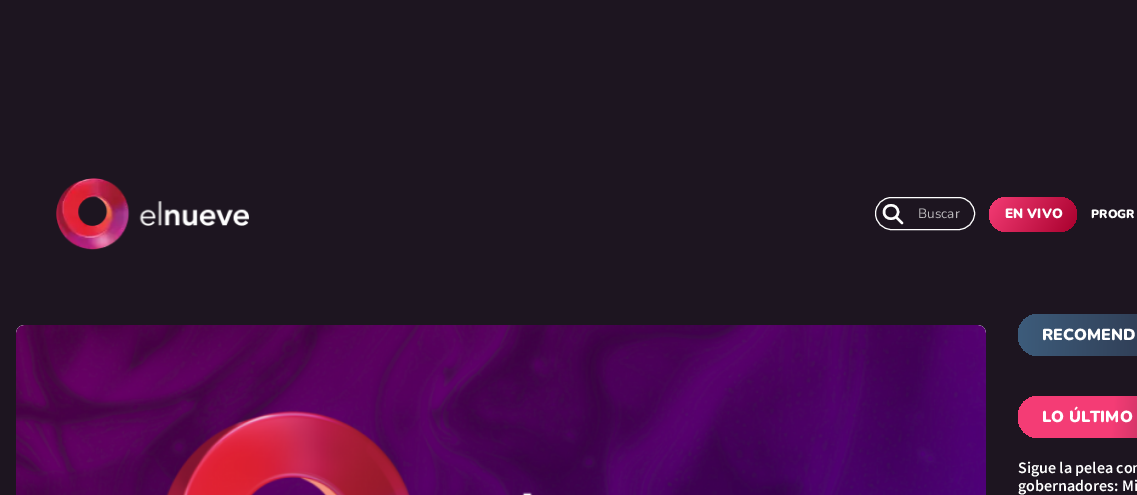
%!PS
<< /PageSize [1137 495] >> setpagedevice
/mt/moveto load def
/li/lineto load def
/ct/curveto load def
/cp/closepath load def
/fl/fill load def
/st/stroke load def
/gs/gsave load def
/gr/grestore load def
/lw/setlinewidth load def
/co { dup -16 bitshift 255 div exch dup -8 bitshift 255 and 255 div exch 255 and 255 div setrgbcolor } def
/fn { [ exch dup neg 0 0 3 -1 roll 0 0 ] selectfont } def
/tx { co fn moveto show } def
/bx { co rectfill } def
/rr { 5 dict begin { /r /h /w /y /x } { exch def } forall
  x r add y moveto x w add y 2 copy h add r arct x w add y h add x 1 index r arct
  x y h add x y r arct x y 2 copy exch w add exch r arct closepath end } def
/im { 5 dict begin { /h /w /y /x /name } { exch def } forall
  gsave x y translate w h scale
  w h 8 [w 0 0 h 0 0] name (r) file false 3 colorimage grestore end } def
0 495 translate 1 -1 scale
4 setmiterlimit
0 0 1137 495 16#1D1520 bx
(media/1.raw) 56 178 193 72 im
16#FFFFFF co
875.5 197.5 99 32 16 rr st
2.4 lw
1 setlinecap
1 setlinejoin
902 223 mt 896 217 li 898 212 mt 898 221 884 221 884 212 ct 884 203 898 203 898 212 ct cp st
gs 989 197 88 35 17.5 rr clip newpath
<< /ShadingType 2 /ColorSpace /DeviceRGB /Coords [993 190 1073 239] /Extend [true true] /Function << /FunctionType 2 /Domain [0 1] /C0 [.957 .235 .459] /C1 [.659 0 .176] /N 1 >> >> shfill gr
16#EDF3F8 co
16 325 970 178 8 rr fl
(media/2.raw) 16 325 970 170 im
gs 1018 314 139 42 20 rr clip newpath
<< /ShadingType 2 /ColorSpace /DeviceRGB /Coords [1018 332 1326 338] /Extend [true true] /Function << /FunctionType 2 /Domain [0 1] /C0 [.239 .361 .482] /C1 [.114 .082 .125] /N 1 >> >> shfill gr
gs 1018 396 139 42 20 rr clip newpath
<< /ShadingType 2 /ColorSpace /DeviceRGB /Coords [1017 403 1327 431] /Extend [true true] /Function << /FunctionType 3 /Domain [0 1] /Functions [<< /FunctionType 2 /Domain [0 1] /C0 [.957 .235 .459] /C1 [.957 .235 .459] /N 1 >> << /FunctionType 2 /Domain [0 1] /C0 [.957 .235 .459] /C1 [.114 .082 .125] /N 1 >> << /FunctionType 2 /Domain [0 1] /C0 [.114 .082 .125] /C1 [.114 .082 .125] /N 1 >>] /Bounds [.31 .91] /Encode [0 1 0 1 0 1] >> >> shfill gr
(Buscar) 918 218 /Nunito-Regular 13.5 16#BBB9BC tx
(EN VIVO) 1005 218 /Nunito-Black 13.5 16#FFFFFF tx
(PROGR) 1091 218 /Nunito-Black 12 16#FFFFFF tx
(RECOMEND) 1042 340 /Nunito-Black 16 16#FFFFFF tx
(LO ÚLTIMO) 1042 422 /Nunito-Black 16 16#FFFFFF tx
(Sigue la pelea con) 1018 473 /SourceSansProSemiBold-SemiBold 16 16#FFFFFF tx
(gobernadores: Mi) 1018 491 /SourceSansProSemiBold-SemiBold 16 16#FFFFFF tx
showpage
